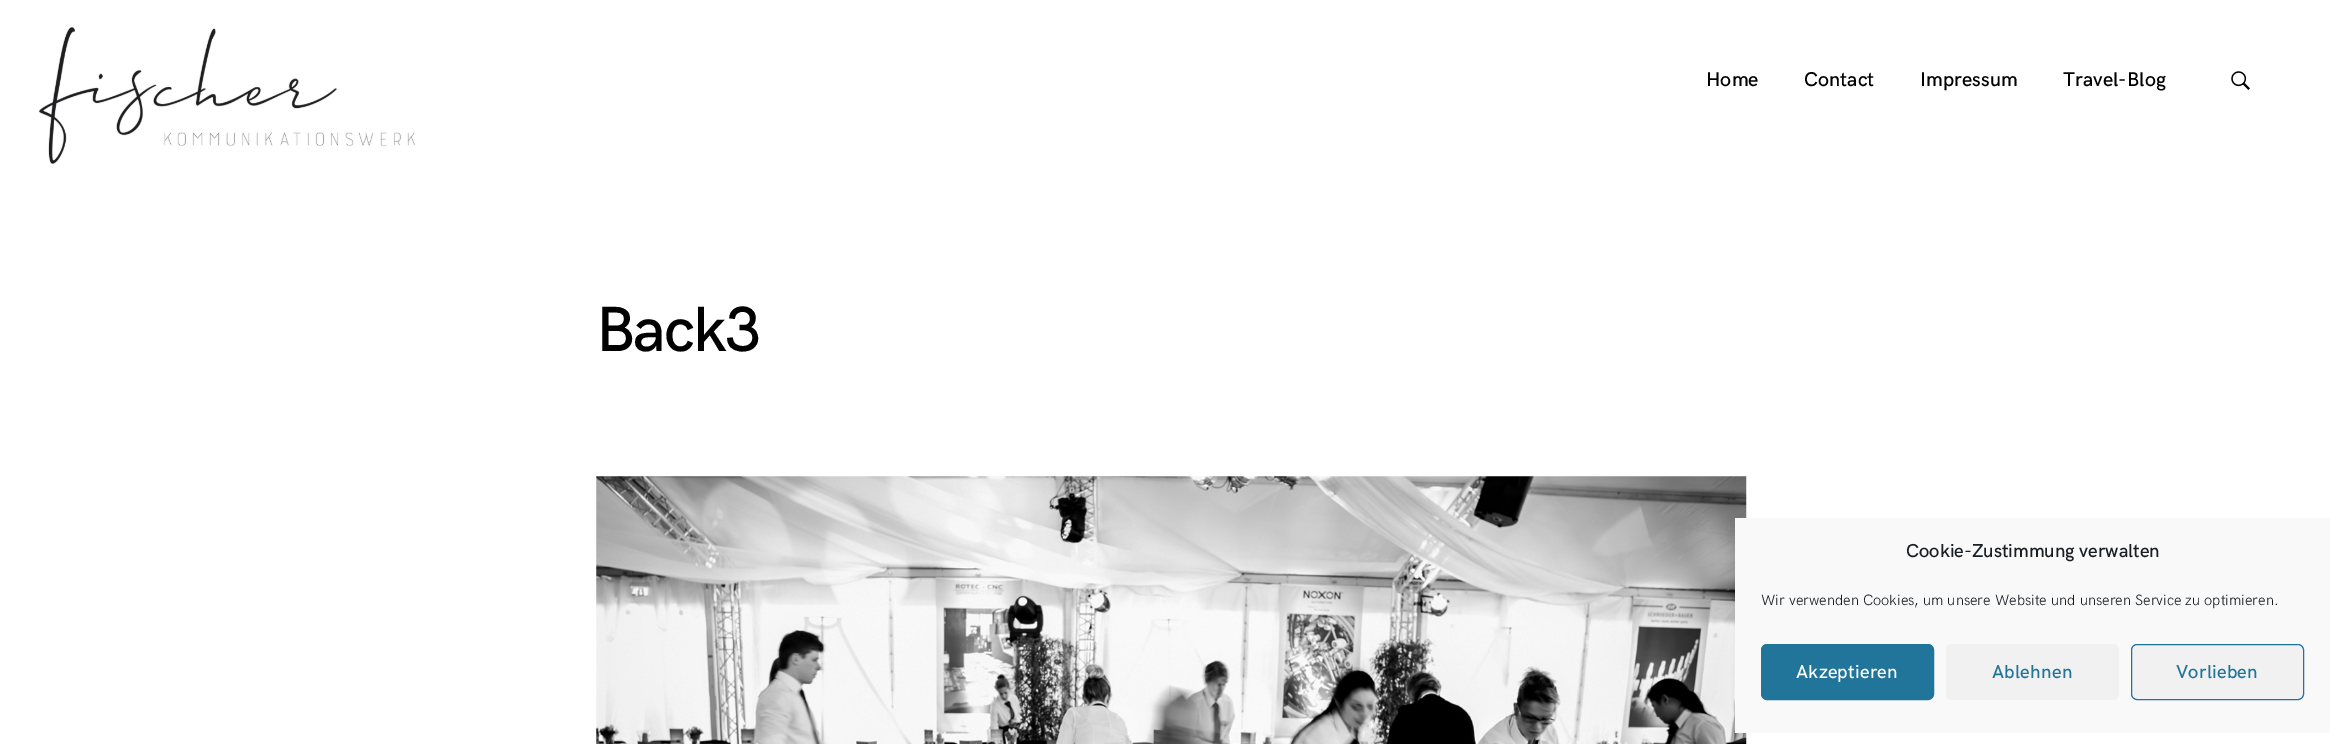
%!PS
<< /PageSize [2342 744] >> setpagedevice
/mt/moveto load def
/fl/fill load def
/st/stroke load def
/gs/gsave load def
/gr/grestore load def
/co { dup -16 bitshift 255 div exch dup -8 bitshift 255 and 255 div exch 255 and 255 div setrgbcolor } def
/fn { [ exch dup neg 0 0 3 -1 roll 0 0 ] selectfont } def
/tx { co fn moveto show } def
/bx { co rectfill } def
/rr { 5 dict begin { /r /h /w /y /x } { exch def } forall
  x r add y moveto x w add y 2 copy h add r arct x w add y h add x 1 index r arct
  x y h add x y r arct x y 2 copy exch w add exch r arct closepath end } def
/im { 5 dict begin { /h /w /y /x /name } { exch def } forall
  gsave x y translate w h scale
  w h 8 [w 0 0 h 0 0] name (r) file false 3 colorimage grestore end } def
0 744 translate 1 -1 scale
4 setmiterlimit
0 0 2342 744 16#FFFFFF bx
(media/1.raw) 38 27 377 137 im
(media/2.raw) 2231 71 19 19 im
(media/3.raw) 596 476 1151 268 im
1735 518 595 215 16#F9F9F9 bx
16#21759B co
1761.5 644.5 172 55 5.5 rr gs fl gr
st
16#F1F1F1 co
1946 644 173 56 6 rr fl
2131.5 644.5 172 55 5.5 rr gs fl gr
16#21759B co
st
/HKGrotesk-Medium 20 fn
16#000000 co
1706 86 mt .1 0 (Home) ashow
1804 86 mt .1 0 (Contact) ashow
1920 86 mt .1 0 (Impressum) ashow
2063 86 mt .1 0 (Travel-Blog) ashow
/HKGrotesk-Medium 64 fn
596 351 mt -2 0 (Back3) ashow
(Cookie-Zustimmung verwalten) 1906 557 /HKGrotesk-Medium 18.75 16#191E23 tx
(Wir verwenden Cookies, um unsere Website und unseren Service zu optimieren.) 1761 605 /HKGrotesk-Light 15 16#191E23 tx
/HKGrotesk-Medium 18.75 fn
16#FFFFFF co
1796 678 mt .25 0 (Akzeptieren) ashow
16#21759B co
1992 678 mt .25 0 (Ablehnen) ashow
2176 678 mt .25 0 (Vorlieben) ashow
showpage
